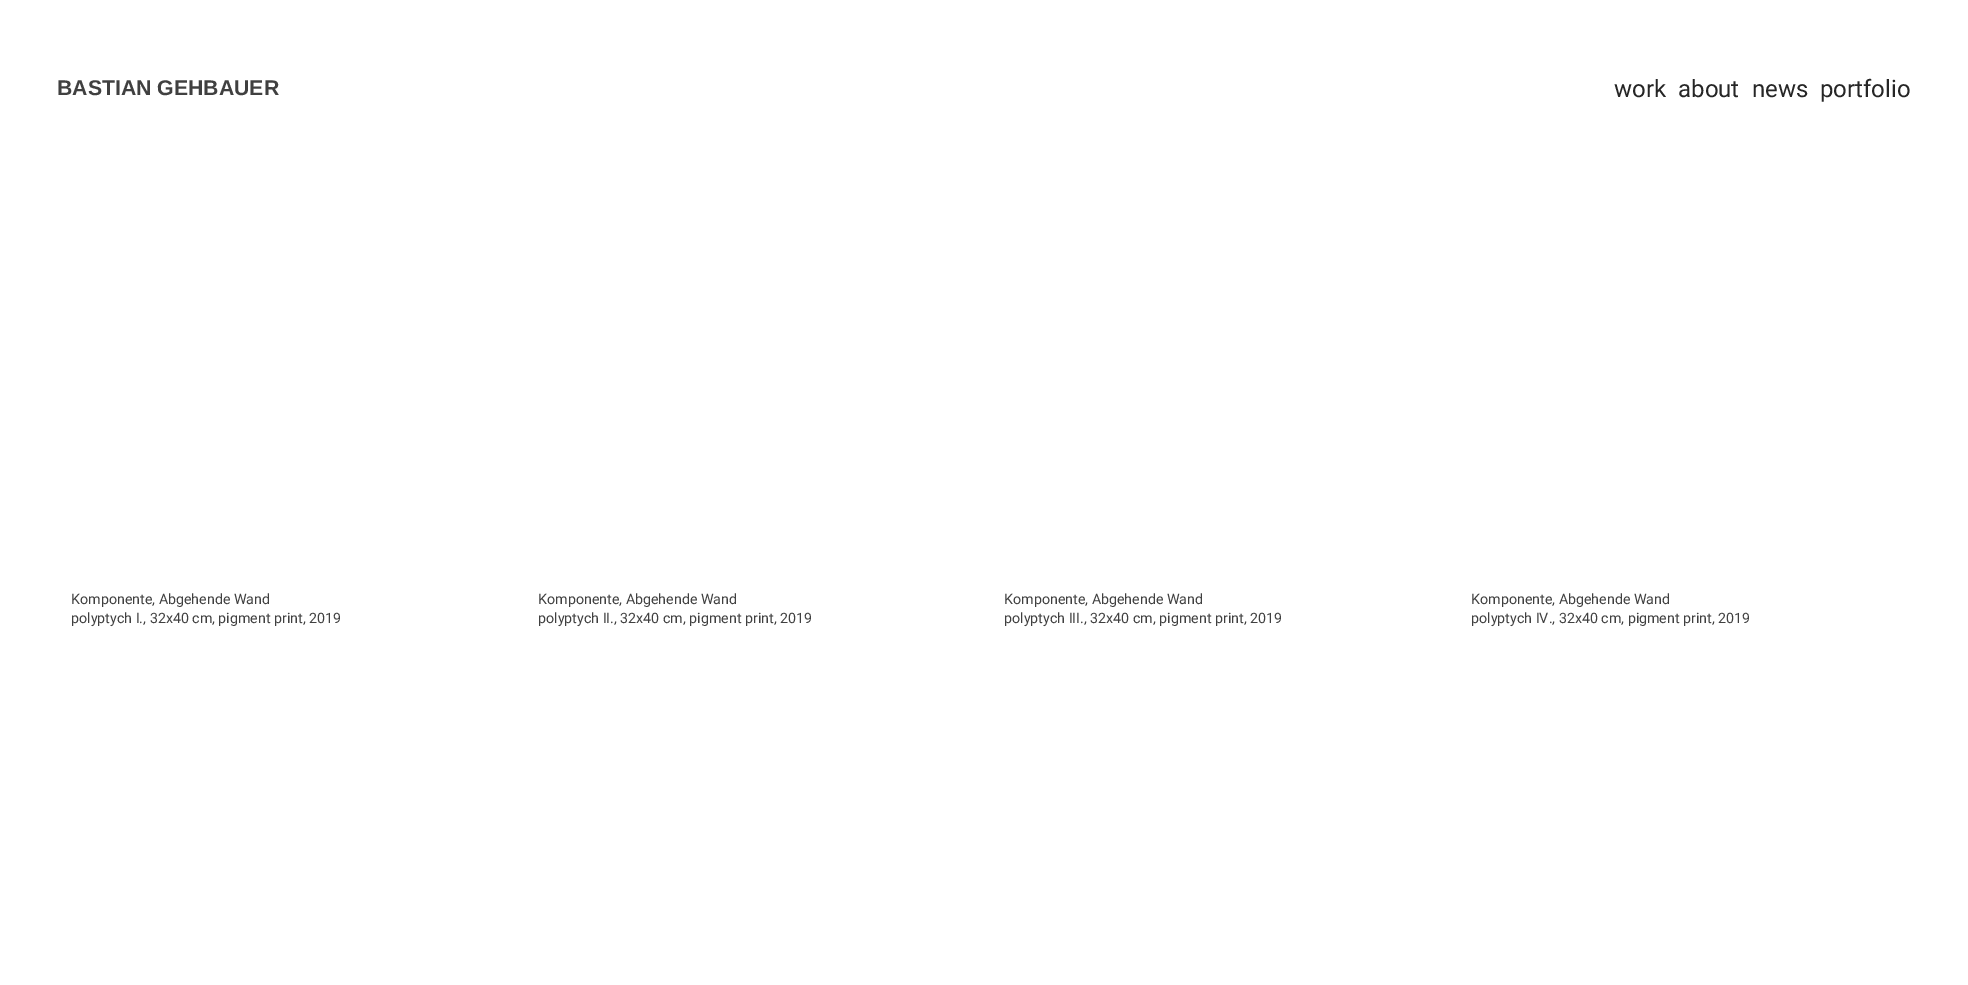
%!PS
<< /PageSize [1968 985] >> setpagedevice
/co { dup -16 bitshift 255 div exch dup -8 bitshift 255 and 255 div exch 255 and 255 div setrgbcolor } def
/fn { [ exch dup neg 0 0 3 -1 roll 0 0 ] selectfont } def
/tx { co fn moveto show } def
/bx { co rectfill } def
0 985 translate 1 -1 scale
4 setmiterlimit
0 0 1968 985 16#FFFFFF bx
(BASTIAN GEHBAUER) 57 95 /LiberationSans-Bold 21.25 16#404040 tx
(work) 1614 97 /Roboto-Regular 24 16#262626 tx
(about) 1678 97 /Roboto-Regular 24 16#262626 tx
(news) 1752 97 /Roboto-Regular 24 16#262626 tx
(portfolio) 1820 97 /Roboto-Regular 24 16#262626 tx
(Komponente, Abgehende Wand) 71 604 /Roboto-Regular 14.25 16#404040 tx
(polyptych I., 32x40 cm, pigment print, 2019) 71 623 /Roboto-Regular 14.25 16#404040 tx
(Komponente, Abgehende Wand) 538 604 /Roboto-Regular 14.25 16#404040 tx
(polyptych II., 32x40 cm, pigment print, 2019) 538 623 /Roboto-Regular 14.25 16#404040 tx
(Komponente, Abgehende Wand) 1004 604 /Roboto-Regular 14.25 16#404040 tx
(polyptych III., 32x40 cm, pigment print, 2019) 1004 623 /Roboto-Regular 14.25 16#404040 tx
(Komponente, Abgehende Wand) 1471 604 /Roboto-Regular 14.25 16#404040 tx
(polyptych IV., 32x40 cm, pigment print, 2019) 1471 623 /Roboto-Regular 14.25 16#404040 tx
showpage
